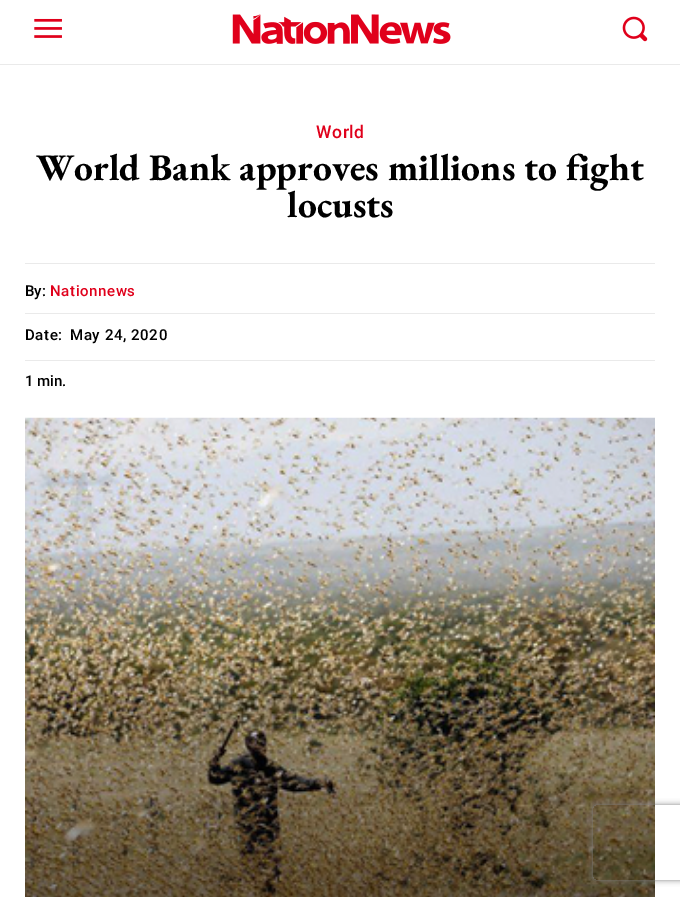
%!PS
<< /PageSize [680 897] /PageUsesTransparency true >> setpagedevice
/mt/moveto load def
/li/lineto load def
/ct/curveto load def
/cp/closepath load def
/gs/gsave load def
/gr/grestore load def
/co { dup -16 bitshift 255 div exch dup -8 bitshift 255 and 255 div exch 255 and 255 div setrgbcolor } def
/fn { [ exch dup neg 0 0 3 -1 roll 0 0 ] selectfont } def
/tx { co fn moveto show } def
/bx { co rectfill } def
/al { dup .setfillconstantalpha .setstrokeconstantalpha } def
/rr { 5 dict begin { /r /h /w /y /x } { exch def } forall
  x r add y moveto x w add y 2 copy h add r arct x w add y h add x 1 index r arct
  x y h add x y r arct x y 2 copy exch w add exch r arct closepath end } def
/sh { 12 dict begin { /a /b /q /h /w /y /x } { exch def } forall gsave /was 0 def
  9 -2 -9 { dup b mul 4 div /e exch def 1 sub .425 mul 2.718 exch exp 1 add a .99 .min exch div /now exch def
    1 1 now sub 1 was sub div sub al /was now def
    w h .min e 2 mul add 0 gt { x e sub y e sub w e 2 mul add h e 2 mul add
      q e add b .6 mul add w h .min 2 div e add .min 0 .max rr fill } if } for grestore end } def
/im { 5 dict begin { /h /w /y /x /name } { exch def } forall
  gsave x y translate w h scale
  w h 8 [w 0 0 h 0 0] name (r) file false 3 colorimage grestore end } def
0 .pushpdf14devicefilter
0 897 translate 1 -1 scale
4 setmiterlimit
0 0 680 897 16#FFFFFF bx
0 64 680 1 16#EAEAEA bx
(media/1.raw) 34 18 28 20 im
(media/2.raw) 232 14 219 30 im
(media/3.raw) 622 16 26 26 im
25 263 630 1 16#EAEAEA bx
25 313 630 1 16#EAEAEA bx
25 360 630 1 16#EAEAEA bx
(media/4.raw) 25 417 630 480 im
gs
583 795 mt 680 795 li 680 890 li 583 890 li cp 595.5 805 mt 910.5 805 li 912 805 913 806 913 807.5 ct 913 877.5 li 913 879 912 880 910.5 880 ct 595.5 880 li 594 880 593 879 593 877.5 ct 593 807.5 li 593 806 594 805 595.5 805 ct cp eoclip newpath
16#808080 co
593 805 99 75 2.5 3 1 sh
gr
/Roboto-Medium 17.5 fn
16#E0001B co
316 138 mt .6 0 (World) ashow
(World Bank approves millions to fight) 36 180 /EBGaramond-Bold 37.5 16#000000 tx
(locusts) 287 217 /EBGaramond-Bold 37.5 16#000000 tx
(By:) 25 296 /Roboto-Medium 15 16#000000 tx
16#E0001B co
50 296 mt .6 0 (Nationnews) ashow
16#000000 co
25 340 mt .6 0 (Date:) ashow
70 340 mt .6 0 (May 24, 2020) ashow
(1 min.) 25 386 /Roboto-Medium 15 16#000000 tx
.poppdf14devicefilter showpage
